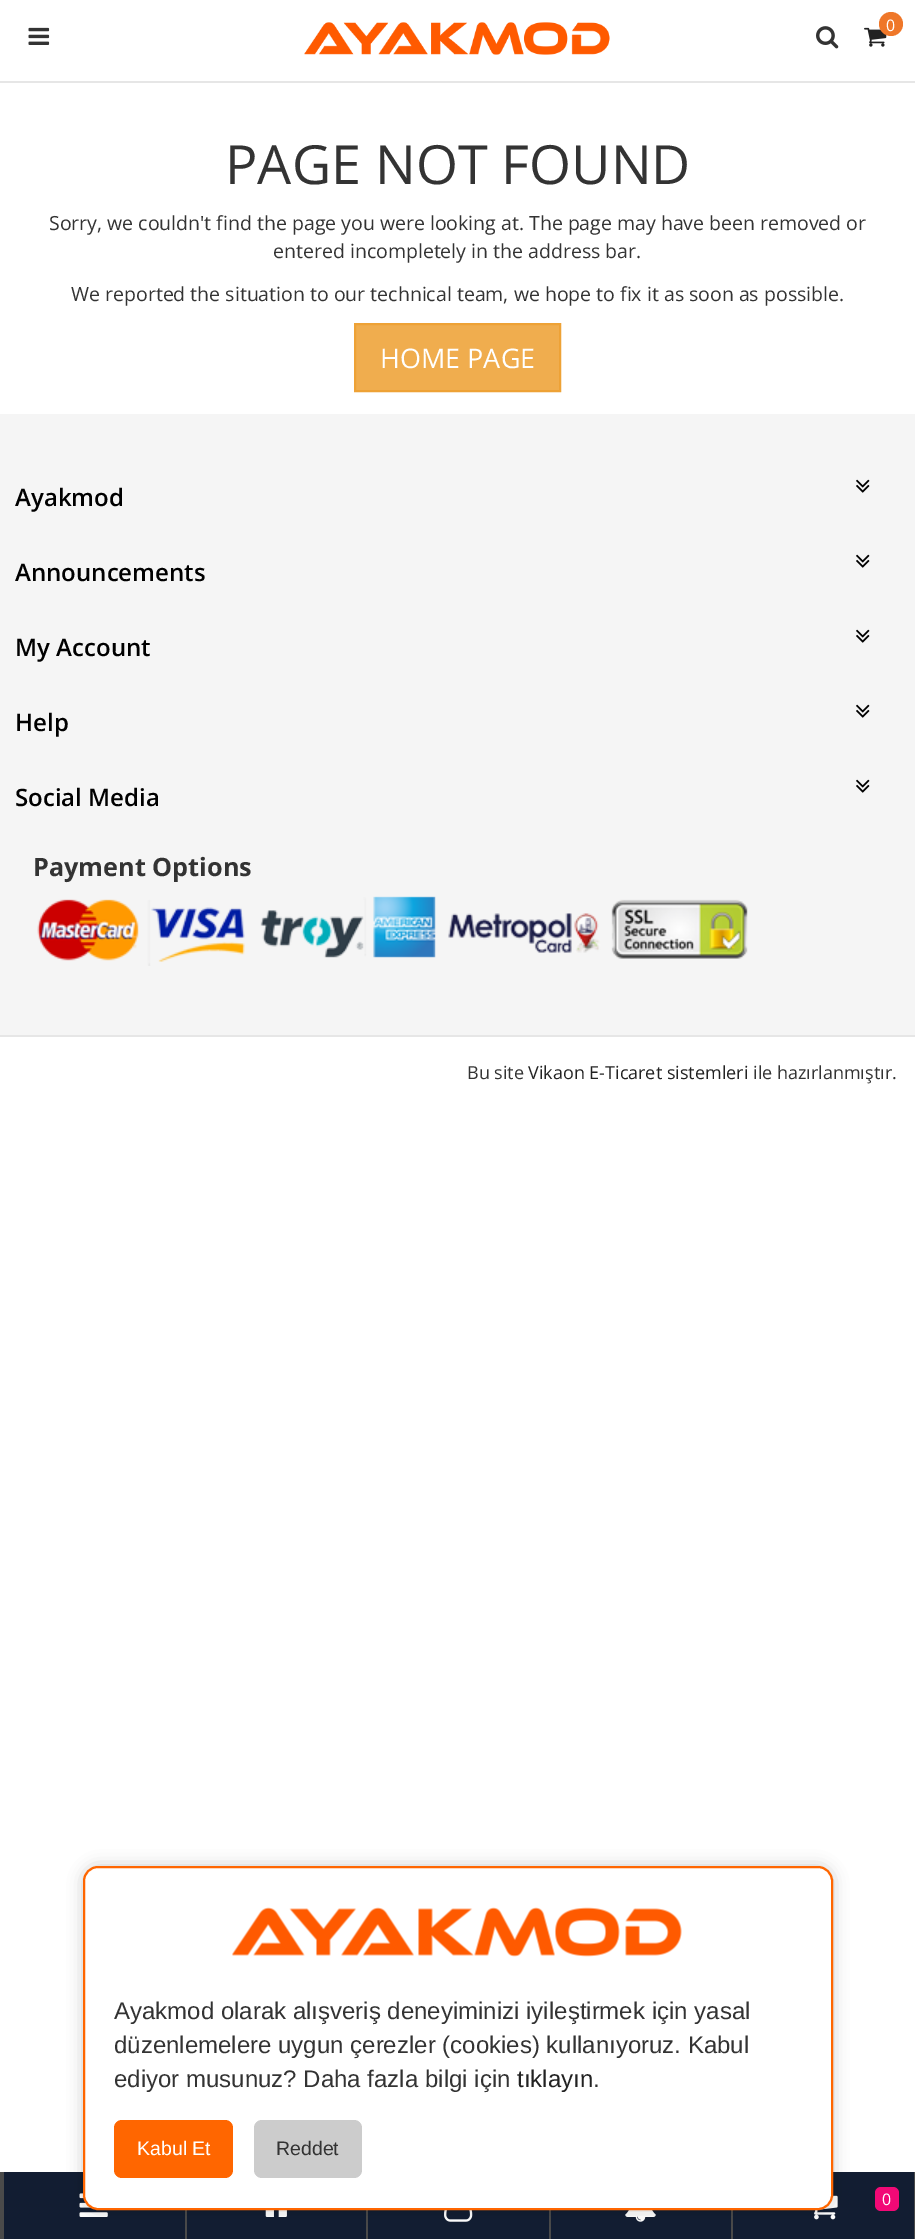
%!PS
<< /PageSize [915 2239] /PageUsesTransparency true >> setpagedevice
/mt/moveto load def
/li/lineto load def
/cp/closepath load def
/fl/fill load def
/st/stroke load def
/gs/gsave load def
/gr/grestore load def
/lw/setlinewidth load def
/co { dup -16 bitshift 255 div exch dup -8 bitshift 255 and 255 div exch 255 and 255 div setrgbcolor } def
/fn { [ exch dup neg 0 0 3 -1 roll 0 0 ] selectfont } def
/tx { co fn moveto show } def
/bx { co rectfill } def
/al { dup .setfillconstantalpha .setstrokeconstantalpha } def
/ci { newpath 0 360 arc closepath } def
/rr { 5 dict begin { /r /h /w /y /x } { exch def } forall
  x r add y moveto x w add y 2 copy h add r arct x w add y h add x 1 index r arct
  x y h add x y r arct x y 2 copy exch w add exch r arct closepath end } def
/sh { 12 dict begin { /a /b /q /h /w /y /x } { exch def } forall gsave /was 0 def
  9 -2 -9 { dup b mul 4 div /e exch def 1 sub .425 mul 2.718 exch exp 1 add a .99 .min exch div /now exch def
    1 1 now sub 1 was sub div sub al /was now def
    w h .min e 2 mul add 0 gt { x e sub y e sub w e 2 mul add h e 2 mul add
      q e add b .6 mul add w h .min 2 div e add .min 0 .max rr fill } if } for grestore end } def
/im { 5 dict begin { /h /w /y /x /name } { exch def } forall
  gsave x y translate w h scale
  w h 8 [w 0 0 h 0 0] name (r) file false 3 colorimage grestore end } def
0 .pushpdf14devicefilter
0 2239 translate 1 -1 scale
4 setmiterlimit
0 0 915 2239 16#FFFFFF bx
0 81 915 2 16#E6E6E6 bx
(media/1.raw) 28 27 22 18 im
(media/2.raw) 304 22 306 33 im
(media/3.raw) 816 26 23 23 im
(media/4.raw) 864 27 23 20 im
16#EF7729 co
891 24 12 ci fl
16#F0AD4E co
355 324 mt 560 324 li 560 391 li 355 391 li cp gs fl gr
16#EEA236 co
2 lw
st
0 414 915 621 16#F5F5F5 bx
(media/5.raw) 856 479 14 14 im
(media/5.raw) 856 554 14 14 im
(media/5.raw) 856 629 14 14 im
(media/5.raw) 856 704 14 14 im
(media/5.raw) 856 779 14 14 im
(media/6.raw) 37 896 711 70 im
0 1035 915 2 16#E6E6E6 bx
914 2172 1 67 16#4A4A4A bx
0 2172 4 67 16#4A4A4A bx
4 2172 181 67 16#121D32 bx
(media/7.raw) 79 2193 29 24 im
733 2172 181 67 16#121D32 bx
731 2210 2 29 16#4A4A4A bx
(media/8.raw) 814 2195 24 25 im
16#F20976 co
875 2187 24 24 6 rr fl
187 2210 179 29 16#121D32 bx
185 2210 2 29 16#4A4A4A bx
(media/9.raw) 265 2210 22 7 im
368 2210 181 29 16#121D32 bx
366 2210 2 29 16#4A4A4A bx
(media/10.raw) 444 2210 29 12 im
551 2210 180 29 16#121D32 bx
549 2210 2 29 16#4A4A4A bx
(media/11.raw) 625 2210 31 12 im
16#000000 co
83 1866 750 344 15 7.5 .2 sh
16#FFFFFF co
84 1867 748 342 14 rr gs fl gr
16#FF6600 co
st
(media/12.raw) 232 1907 450 50 im
114 2120 119 58 8 rr fl
16#CCCCCC co
254 2120 108 58 8 rr fl
(0) 886 31 /OpenSans-Regular 16 16#FFFFFF tx
(PAGE NOT FOUND) 225 184 /OpenSans-Regular 54 16#333333 tx
(Sorry, we couldn't find the page you were looking at. The page may have been removed or) 49 230 /OpenSans-Regular 19.5 16#333333 tx
(entered incompletely in the address bar.) 273 258 /OpenSans-Regular 19.5 16#333333 tx
(We reported the situation to our technical team, we hope to fix it as soon as possible.) 71 301 /OpenSans-Regular 19.5 16#333333 tx
(HOME PAGE) 380 368 /OpenSans-Regular 27 16#FFFFFF tx
(Ayakmod) 15 506 /OpenSans-SemiBold 24 16#000000 tx
(Announcements) 15 581 /OpenSans-SemiBold 24 16#000000 tx
(My Account) 15 656 /OpenSans-SemiBold 24 16#000000 tx
(Help) 15 731 /OpenSans-SemiBold 24 16#000000 tx
(Social Media) 15 806 /OpenSans-SemiBold 24 16#000000 tx
(Payment Options) 33 876 /OpenSans-Bold 25.25 16#333333 tx
(Bu site) 467 1079 /OpenSans-Regular 18 16#333333 tx
(Vikaon E-Ticaret sistemleri) 528 1079 /OpenSans-Regular 18 16#222222 tx
(ile hazırlanmıştır.) 753 1079 /OpenSans-Regular 18 16#333333 tx
(0) 882 2205 /OpenSans-Regular 16 16#FFFFFF tx
(Ayakmod olarak alışveriş deneyiminizi iyileştirmek için yasal) 114 2019 /LiberationSans-Regular 24 16#333333 tx
(düzenlemelere uygun çerezler \(cookies\) kullanıyoruz. Kabul) 114 2053 /LiberationSans-Regular 24 16#333333 tx
(ediyor musunuz? Daha fazla bilgi için) 114 2087 /LiberationSans-Regular 24 16#333333 tx
(tıklayın) 517 2087 /LiberationSans-Regular 24 16#222222 tx
(.) 593 2087 /LiberationSans-Regular 24 16#333333 tx
(Kabul Et) 137 2155 /LiberationSans-Regular 19.5 16#FFFFFF tx
(Reddet) 276 2155 /LiberationSans-Regular 19.5 16#333333 tx
.poppdf14devicefilter showpage
